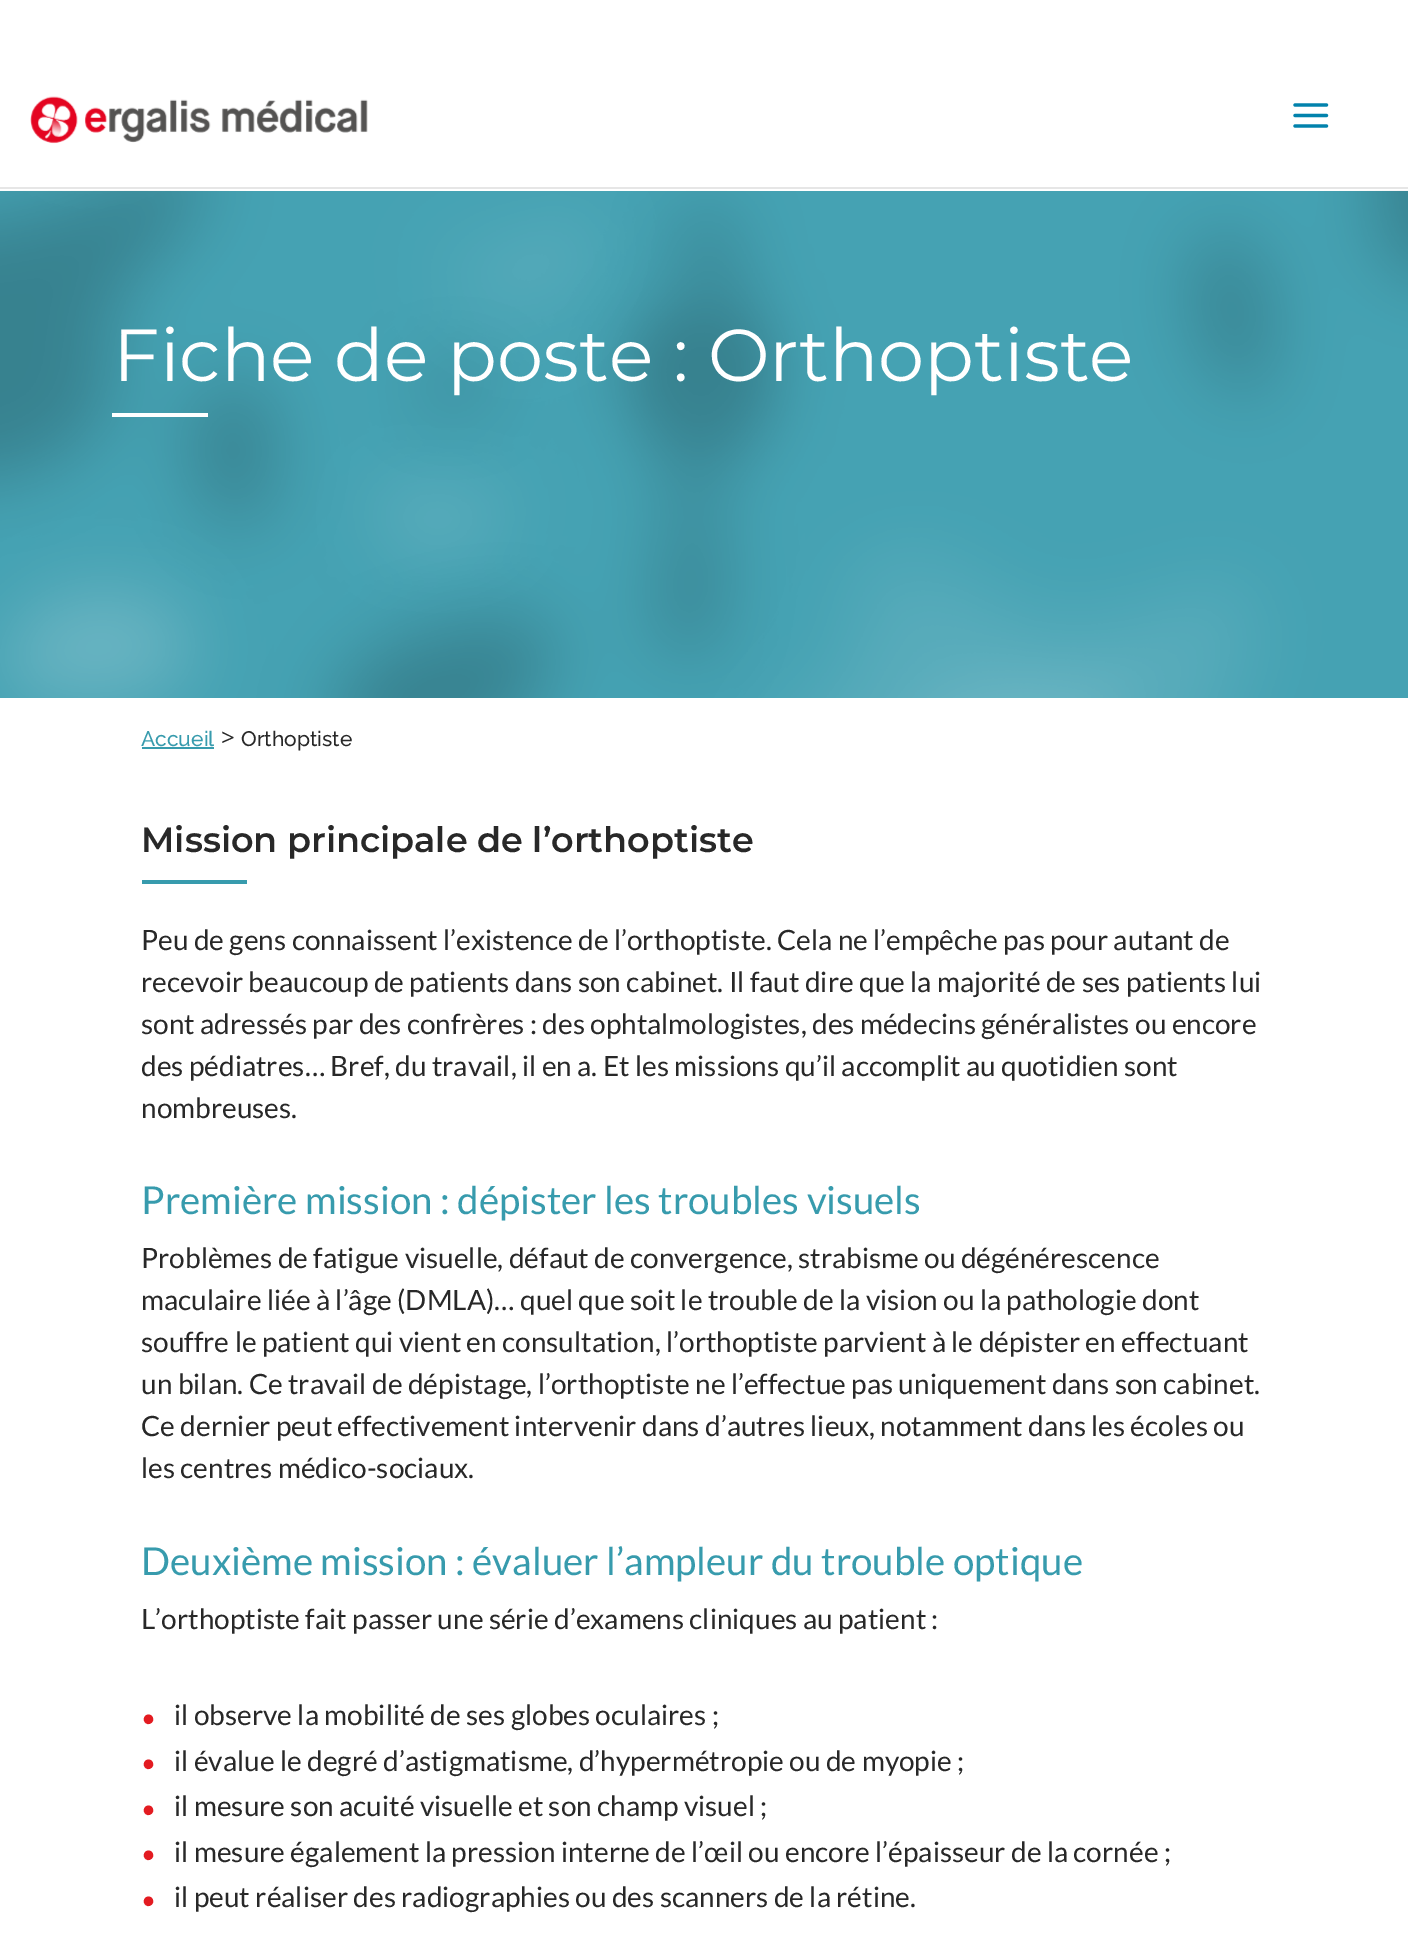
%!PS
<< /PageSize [1408 1951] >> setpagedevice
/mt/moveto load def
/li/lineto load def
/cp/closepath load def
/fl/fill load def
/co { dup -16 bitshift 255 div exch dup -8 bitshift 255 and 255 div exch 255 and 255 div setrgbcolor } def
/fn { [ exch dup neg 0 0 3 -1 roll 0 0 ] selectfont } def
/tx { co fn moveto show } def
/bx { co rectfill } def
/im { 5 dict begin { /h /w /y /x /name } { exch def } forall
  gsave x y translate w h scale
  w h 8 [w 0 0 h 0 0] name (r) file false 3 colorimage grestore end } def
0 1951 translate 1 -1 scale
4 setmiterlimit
0 0 1408 1951 16#FFFFFF bx
16#E6E6E6 co
0 187 mt 0 189 li 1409 189 li 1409 54 li 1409 187 li cp fl
(media/1.raw) 30 96 338 48 im
(media/2.raw) 1293 103 36 25 im
0 191 1408 507 16#45A2B3 bx
(media/3.raw) 0 190 1408 508 im
112 413 96 4 16#FFFFFF bx
142 747 72 2 16#379BAD bx
142 880 105 4 16#379BAD bx
(Fiche de poste : Orthoptiste) 113 381 /Montserrat-Regular 73.5 16#FFFFFF tx
(Accueil) 141 746 /Raleway-Medium 21 16#379BAD tx
(>) 221 746 /OpenSans-Regular 24 16#282828 tx
(Orthoptiste) 241 746 /Raleway-Medium 21 16#282828 tx
(Mission principale de l’orthoptiste) 141 852 /Montserrat-SemiBold 35 16#282828 tx
(Peu de gens connaissent l’existence de l’orthoptiste. Cela ne l’empêche pas pour autant de) 141 950 /Lato-Regular 28 16#282828 tx
(recevoir beaucoup de patients dans son cabinet. Il faut dire que la majorité de ses patients lui) 141 992 /Lato-Regular 28 16#282828 tx
(sont adressés par des confrères : des ophtalmologistes, des médecins généralistes ou encore) 141 1034 /Lato-Regular 28 16#282828 tx
(des pédiatres… Bref, du travail, il en a. Et les missions qu’il accomplit au quotidien sont) 141 1076 /Lato-Regular 28 16#282828 tx
(nombreuses.) 141 1118 /Lato-Regular 28 16#282828 tx
(Première mission : dépister les troubles visuels) 141 1214 /Lato-Regular 38.5 16#379BAD tx
(Problèmes de fatigue visuelle, défaut de convergence, strabisme ou dégénérescence) 141 1268 /Lato-Regular 28 16#282828 tx
(maculaire liée à l’âge \(DMLA\)… quel que soit le trouble de la vision ou la pathologie dont) 141 1310 /Lato-Regular 28 16#282828 tx
(souffre le patient qui vient en consultation, l’orthoptiste parvient à le dépister en effectuant) 141 1352 /Lato-Regular 28 16#282828 tx
(un bilan. Ce travail de dépistage, l’orthoptiste ne l’effectue pas uniquement dans son cabinet.) 141 1394 /Lato-Regular 28 16#282828 tx
(Ce dernier peut effectivement intervenir dans d’autres lieux, notamment dans les écoles ou) 141 1436 /Lato-Regular 28 16#282828 tx
(les centres médico-sociaux.) 141 1478 /Lato-Regular 28 16#282828 tx
(Deuxième mission : évaluer l’ampleur du trouble optique) 141 1575 /Lato-Regular 38.5 16#379BAD tx
(L’orthoptiste fait passer une série d’examens cliniques au patient :) 141 1629 /Lato-Regular 28 16#282828 tx
(•) 141 1727 /Lato-Regular 26 16#E31B21 tx
(il observe la mobilité de ses globes oculaires ;) 174 1725 /Lato-Regular 28 16#282828 tx
(•) 141 1772 /Lato-Regular 26 16#E31B21 tx
(il évalue le degré d’astigmatisme, d’hypermétropie ou de myopie ;) 174 1771 /Lato-Regular 28 16#282828 tx
(•) 141 1818 /Lato-Regular 26 16#E31B21 tx
(il mesure son acuité visuelle et son champ visuel ;) 174 1816 /Lato-Regular 28 16#282828 tx
(•) 141 1863 /Lato-Regular 26 16#E31B21 tx
(il mesure également la pression interne de l’œil ou encore l’épaisseur de la cornée ;) 174 1862 /Lato-Regular 28 16#282828 tx
(•) 141 1909 /Lato-Regular 26 16#E31B21 tx
(il peut réaliser des radiographies ou des scanners de la rétine.) 174 1907 /Lato-Regular 28 16#282828 tx
showpage
